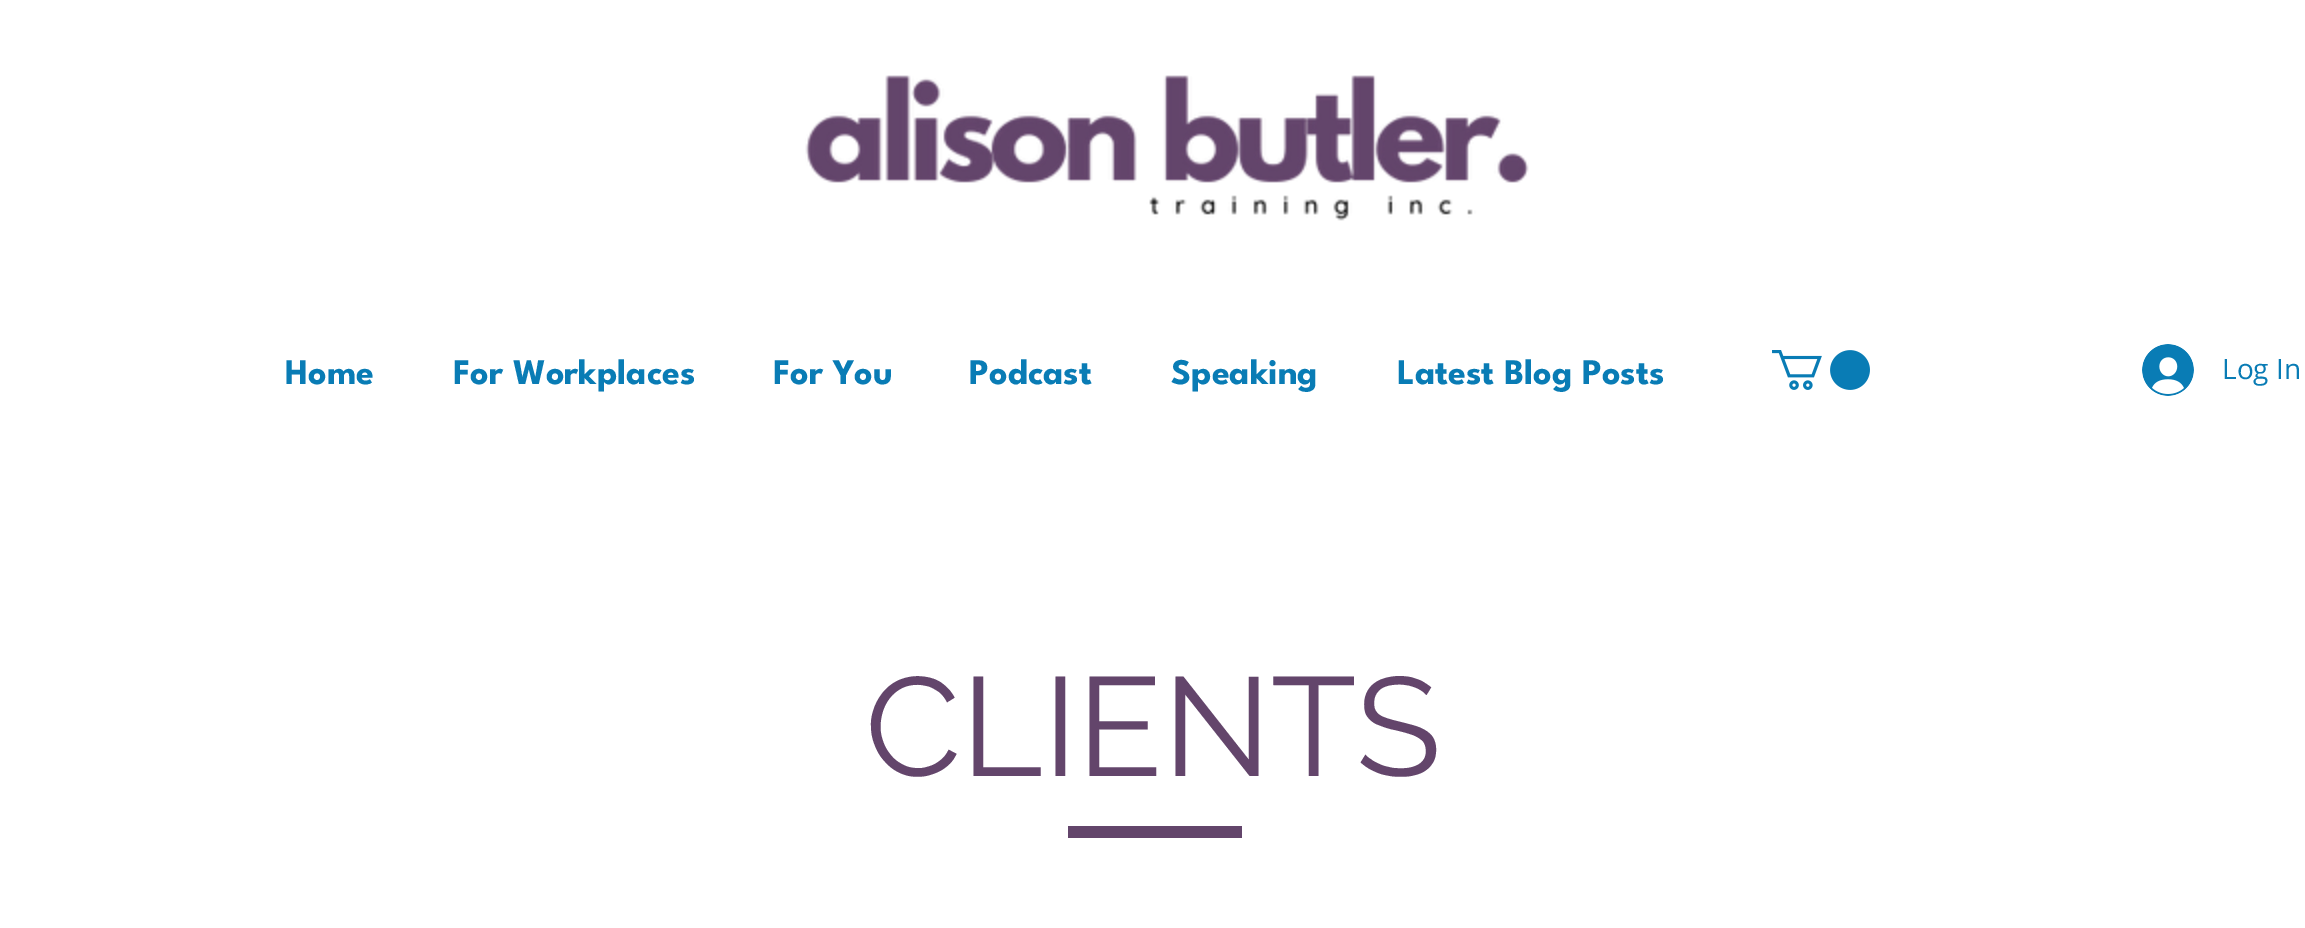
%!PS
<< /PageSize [2305 928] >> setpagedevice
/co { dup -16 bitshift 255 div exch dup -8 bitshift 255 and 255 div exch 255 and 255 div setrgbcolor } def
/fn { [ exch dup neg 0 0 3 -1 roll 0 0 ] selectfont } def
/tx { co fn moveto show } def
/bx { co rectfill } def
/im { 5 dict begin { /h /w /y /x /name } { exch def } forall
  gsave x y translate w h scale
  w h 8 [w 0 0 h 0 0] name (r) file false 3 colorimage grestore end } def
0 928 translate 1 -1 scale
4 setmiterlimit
0 0 2305 928 16#FFFFFF bx
(media/1.raw) 805 75 724 146 im
(media/2.raw) 1772 350 98 40 im
(media/3.raw) 2142 344 52 52 im
1068 826 174 12 16#63456B bx
(Home) 285 384 /LeagueSpartan-Bold 36 16#097CB5 tx
(For Workplaces) 453 384 /LeagueSpartan-Bold 36 16#097CB5 tx
(For You) 773 384 /LeagueSpartan-Bold 36 16#097CB5 tx
(Podcast) 969 384 /LeagueSpartan-Bold 36 16#097CB5 tx
(Speaking) 1171 384 /LeagueSpartan-Bold 36 16#097CB5 tx
(Latest Blog Posts) 1397 384 /LeagueSpartan-Bold 36 16#097CB5 tx
(Log In) 2222 379 /OpenSans-Regular 28 16#097CB5 tx
(CLIENTS) 865 776 /Raleway-Regular 140 16#63456B tx
showpage
